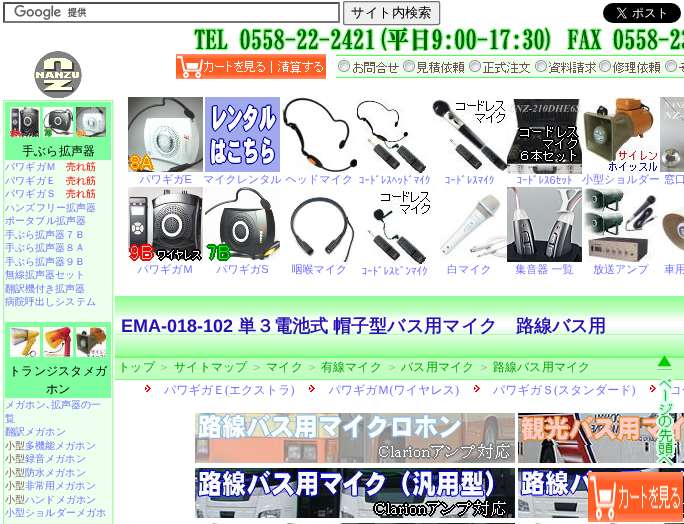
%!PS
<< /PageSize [684 524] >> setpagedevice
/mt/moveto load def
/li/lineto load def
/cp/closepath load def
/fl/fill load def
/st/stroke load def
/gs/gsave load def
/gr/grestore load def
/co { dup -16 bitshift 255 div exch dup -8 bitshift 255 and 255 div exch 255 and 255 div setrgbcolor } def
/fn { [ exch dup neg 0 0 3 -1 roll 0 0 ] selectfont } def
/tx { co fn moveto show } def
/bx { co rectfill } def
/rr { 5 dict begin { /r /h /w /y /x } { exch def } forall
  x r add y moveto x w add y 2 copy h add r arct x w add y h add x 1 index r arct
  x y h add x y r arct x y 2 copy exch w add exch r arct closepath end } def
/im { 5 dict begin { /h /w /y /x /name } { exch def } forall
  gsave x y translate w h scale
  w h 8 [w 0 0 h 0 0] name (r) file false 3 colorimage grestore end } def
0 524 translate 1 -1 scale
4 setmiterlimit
0 0 684 524 16#FFFFFF bx
(media/1.raw) 14 5 73 15 im
16#4F4F4F co
3 2 mt 340 2 li 338 4 li 5 4 li cp fl
16#767676 co
340 2 mt 340 23 li 338 21 li 338 4 li cp fl
340 23 mt 3 23 li 5 21 li 338 21 li cp fl
16#4F4F4F co
3 23 mt 3 2 li 5 4 li 5 21 li cp fl
16#EFEFEF co
343.5 1.5 96 23 1.5 rr gs fl gr
16#767676 co
st
(media/2.raw) 603 3 78 20 im
(media/3.raw) 34 51 48 47 im
16#EEFFEE co
3.5 100.5 mt 112.5 100.5 li 112.5 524.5 li 3.5 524.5 li cp gs fl gr
16#A0FFA0 co
st
5 102 106 58 16#80FFA0 bx
(media/4.raw) 10 107 30 30 im
(media/5.raw) 43 107 30 30 im
(media/6.raw) 76 107 30 30 im
5 322 106 76 16#80FFA0 bx
(media/7.raw) 10 327 30 30 im
(media/8.raw) 43 327 30 30 im
(media/9.raw) 76 327 30 30 im
(media/12.raw) 145 384 539 13 im
(media/14.raw) 518 413 166 50 im
(media/20.raw) 115 296 569 60 im
115 358 569 21 16#C0FFC0 bx
115 356 569 2 16#70FF70 bx
115 379 569 1 16#70FF70 bx
(media/10.raw) 656 355 19 113 im
(media/16.raw) 518 468 166 50 im
(media/11.raw) 588 472 95 50 im
(media/13.raw) 195 413 320 50 im
(media/15.raw) 195 468 320 50 im
(media/17.raw) 211 523 304 1 im
(media/18.raw) 534 523 150 1 im
(media/19.raw) 128 26 556 250 im
(サイト内検索) 351 17 /WenQuanYiZenHei-Medium 13.25 16#000000 tx
(手ぶら拡声器) 22 155 /WenQuanYiZenHei-Medium 12 16#000000 tx
(パワギガＭ) 5 170 /WenQuanYiZenHei-Medium 10 16#7070FF tx
(売れ筋) 66 170 /WenQuanYiZenHei-Medium 10 16#FF0000 tx
(パワギガＥ) 5 184 /WenQuanYiZenHei-Medium 10 16#7070FF tx
(売れ筋) 66 184 /WenQuanYiZenHei-Medium 10 16#FF0000 tx
(パワギガＳ) 5 197 /WenQuanYiZenHei-Medium 10 16#7070FF tx
(売れ筋) 66 197 /WenQuanYiZenHei-Medium 10 16#FF0000 tx
(ハンズフリー拡声器) 5 211 /WenQuanYiZenHei-Medium 10 16#7070FF tx
(ポータブル拡声器) 5 224 /WenQuanYiZenHei-Medium 10 16#7070FF tx
(手ぶら拡声器７Ｂ) 5 238 /WenQuanYiZenHei-Medium 10 16#7070FF tx
(手ぶら拡声器８Ａ) 5 251 /WenQuanYiZenHei-Medium 10 16#7070FF tx
(手ぶら拡声器９Ｂ) 5 265 /WenQuanYiZenHei-Medium 10 16#7070FF tx
(無線拡声器セット) 5 278 /WenQuanYiZenHei-Medium 10 16#7070FF tx
(翻訳機付き拡声器) 5 292 /WenQuanYiZenHei-Medium 10 16#7070FF tx
(病院呼出しシステム) 5 305 /WenQuanYiZenHei-Medium 10 16#7070FF tx
(トランジスタメガ) 9 375 /WenQuanYiZenHei-Medium 12 16#000000 tx
(ホン) 46 393 /WenQuanYiZenHei-Medium 12 16#000000 tx
(メガホン) 5 408 /WenQuanYiZenHei-Medium 10 16#7070FF tx
(､) 46 408 /IPAGothic-Regular 10 16#7070FF tx
(拡声器の一) 51 408 /WenQuanYiZenHei-Medium 10 16#7070FF tx
(覧) 5 422 /WenQuanYiZenHei-Medium 10 16#7070FF tx
(翻訳メガホン) 5 435 /WenQuanYiZenHei-Medium 10 16#7070FF tx
(小型) 5 449 /WenQuanYiZenHei-Medium 10 16#705050 tx
(多機能メガホン) 25 449 /WenQuanYiZenHei-Medium 10 16#7070FF tx
(小型) 5 462 /WenQuanYiZenHei-Medium 10 16#705050 tx
(録音メガホン) 25 462 /WenQuanYiZenHei-Medium 10 16#7070FF tx
(小型) 5 476 /WenQuanYiZenHei-Medium 10 16#705050 tx
(防水メガホン) 25 476 /WenQuanYiZenHei-Medium 10 16#7070FF tx
(小型) 5 489 /WenQuanYiZenHei-Medium 10 16#705050 tx
(非常用メガホン) 25 489 /WenQuanYiZenHei-Medium 10 16#7070FF tx
(小型) 5 503 /WenQuanYiZenHei-Medium 10 16#705050 tx
(ハンドメガホン) 25 503 /WenQuanYiZenHei-Medium 10 16#7070FF tx
(小型ショルダーメガホ) 5 516 /WenQuanYiZenHei-Medium 10 16#7070FF tx
(EMA-018-102) 121 332 /LiberationSans-Bold 18 16#2511B5 tx
(単３電池式 帽子型バス用マイク　路線バス用) 238 332 /WenQuanYiZenHei-Bold 18 16#2511B5 tx
(トップ) 118 371 /WenQuanYiZenHei-Medium 12 16#00A000 tx
(＞) 158 371 /WenQuanYiZenHei-Medium 12 16#A0A0A0 tx
(サイトマップ) 174 371 /WenQuanYiZenHei-Medium 12 16#00A000 tx
(＞) 251 371 /WenQuanYiZenHei-Medium 12 16#A0A0A0 tx
(マイク) 266 371 /WenQuanYiZenHei-Medium 12 16#00A000 tx
(＞) 306 371 /WenQuanYiZenHei-Medium 12 16#A0A0A0 tx
(有線マイク) 321 371 /WenQuanYiZenHei-Medium 12 16#00A000 tx
(＞) 386 371 /WenQuanYiZenHei-Medium 12 16#A0A0A0 tx
(バス用マイク) 401 371 /WenQuanYiZenHei-Medium 12 16#00A000 tx
(＞) 478 371 /WenQuanYiZenHei-Medium 12 16#A0A0A0 tx
(路線バス用マイク) 493 371 /WenQuanYiZenHei-Medium 12 16#00A000 tx
showpage
